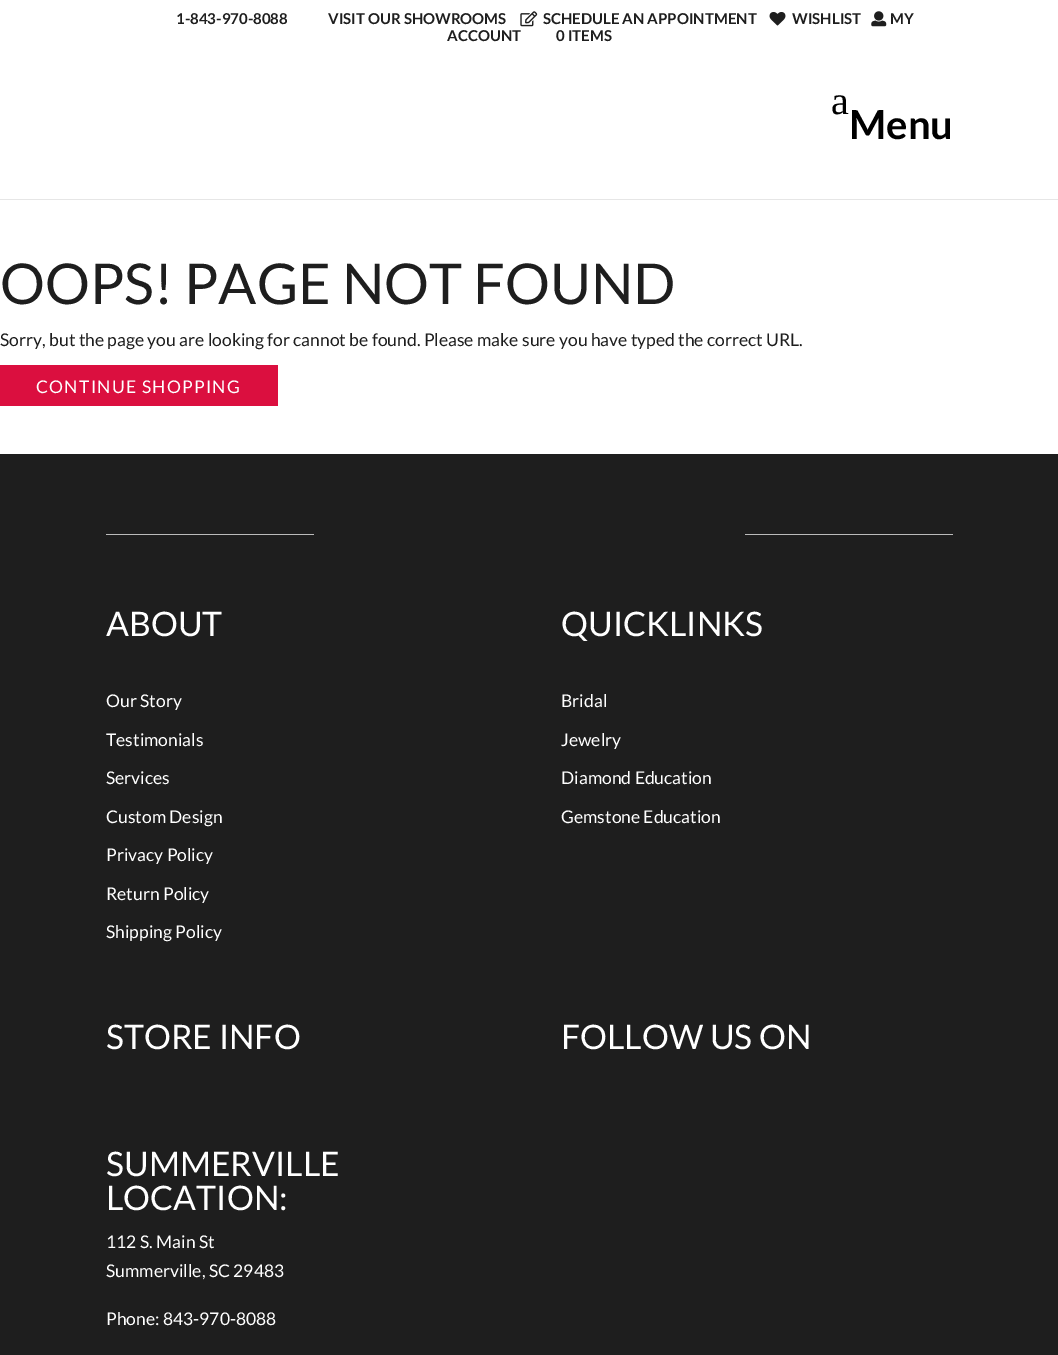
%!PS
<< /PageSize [1058 1355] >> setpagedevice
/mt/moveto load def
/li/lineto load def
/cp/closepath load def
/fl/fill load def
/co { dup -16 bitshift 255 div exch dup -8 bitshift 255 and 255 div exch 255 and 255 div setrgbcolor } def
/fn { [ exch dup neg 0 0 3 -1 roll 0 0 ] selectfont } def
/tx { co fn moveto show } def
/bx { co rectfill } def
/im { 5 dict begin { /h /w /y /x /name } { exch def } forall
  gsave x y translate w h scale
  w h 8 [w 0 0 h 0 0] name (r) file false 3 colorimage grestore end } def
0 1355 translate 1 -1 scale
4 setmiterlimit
0 0 1058 1355 16#FFFFFF bx
(media/1.raw) 871 11 16 16 im
(media/2.raw) 520 11 18 16 im
(media/3.raw) 769 12 17 14 im
16#E6E6E6 co
0 199 mt 0 200 li 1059 200 li 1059 51 li 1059 199 li cp fl
0 365 278 41 16#DB0F3F bx
0 454 1058 901 16#1E1E1E bx
106 534 847 1 16#BBBBBB bx
314 534 431 1 16#1E1E1E bx
(1-843-970-8088) 176 24 /Lato-Bold 15 16#1E1E1E tx
(VISIT OUR SHOWROOMS) 328 24 /Lato-Bold 15 16#1E1E1E tx
(MY) 890 24 /Lato-Bold 15 16#1E1E1E tx
(ACCOUNT) 447 41 /Lato-Bold 15 16#1E1E1E tx
(SCHEDULE AN APPOINTMENT) 543 24 /Lato-Bold 15 16#1E1E1E tx
(WISHLIST) 792 24 /Lato-Bold 15 16#1E1E1E tx
(0 ITEMS) 556 41 /Lato-Bold 15 16#1E1E1E tx
(a) 831 114 /LiberationSerif-Regular 40 16#000000 tx
(Menu) 849 139 /Lato-Bold 40 16#000000 tx
(OOPS! PAGE NOT FOUND) 0 304 /Lato-Regular 56.25 16#1E1E1E tx
(Sorry, but the page you are looking for cannot be found. Please make sure you have typed the correct URL.) 0 346 /Lato-Regular 17.5 16#1E1E1E tx
16#FFFFFF co
36 393 mt 1.25 0 (CONTINUE SHOPPING) ashow
(ABOUT) 106 636 /Lato-Regular 33.75 16#FFFFFF tx
(Our Story) 106 707 /Lato-Regular 17.5 16#FFFFFF tx
(Testimonials) 106 746 /Lato-Regular 17.5 16#FFFFFF tx
(Services) 106 784 /Lato-Regular 17.5 16#FFFFFF tx
(Custom Design) 106 823 /Lato-Regular 17.5 16#FFFFFF tx
(Privacy Policy) 106 861 /Lato-Regular 17.5 16#FFFFFF tx
(Return Policy) 106 900 /Lato-Regular 17.5 16#FFFFFF tx
(Shipping Policy) 106 938 /Lato-Regular 17.5 16#FFFFFF tx
(QUICKLINKS) 561 636 /Lato-Regular 33.75 16#FFFFFF tx
(Bridal) 561 707 /Lato-Regular 17.5 16#FFFFFF tx
(Jewelry) 561 746 /Lato-Regular 17.5 16#FFFFFF tx
(Diamond Education) 561 784 /Lato-Regular 17.5 16#FFFFFF tx
(Gemstone Education) 561 823 /Lato-Regular 17.5 16#FFFFFF tx
(STORE INFO) 106 1049 /Lato-Regular 33.75 16#FFFFFF tx
(SUMMERVILLE) 106 1176 /Lato-Regular 33.75 16#FFFFFF tx
(LOCATION:) 106 1210 /Lato-Regular 33.75 16#FFFFFF tx
(112 S. Main St) 106 1248 /Lato-Regular 17.5 16#FFFFFF tx
(Summerville, SC 29483) 106 1277 /Lato-Regular 17.5 16#FFFFFF tx
(Phone: 843-970-8088) 106 1325 /Lato-Regular 17.5 16#FFFFFF tx
(FOLLOW US ON) 561 1049 /Lato-Regular 33.75 16#FFFFFF tx
showpage
